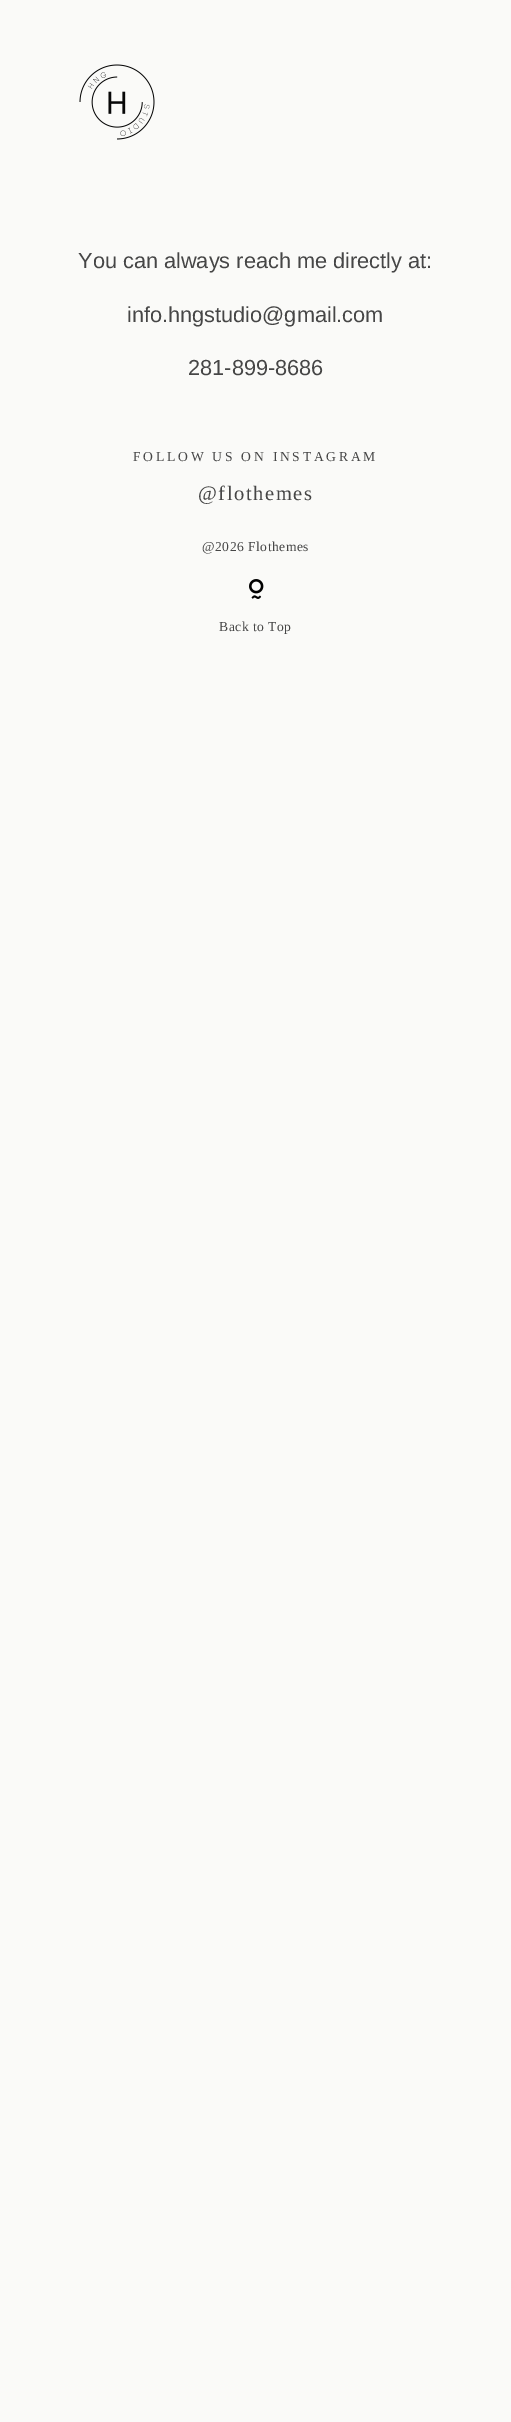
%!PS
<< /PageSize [511 2422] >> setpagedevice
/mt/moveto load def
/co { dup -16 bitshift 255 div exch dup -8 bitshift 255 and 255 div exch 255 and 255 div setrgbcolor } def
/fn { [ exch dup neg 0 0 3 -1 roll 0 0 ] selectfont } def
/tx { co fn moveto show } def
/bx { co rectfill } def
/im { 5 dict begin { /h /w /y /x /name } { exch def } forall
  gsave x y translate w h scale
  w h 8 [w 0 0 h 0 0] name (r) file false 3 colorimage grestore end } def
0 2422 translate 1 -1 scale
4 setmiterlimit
0 0 511 2422 16#FAFAF8 bx
(media/1.raw) 79 64 76 76 im
(media/2.raw) 249 579 15 20 im
(You can always reach me directly at:) 78 268 /LiberationSans-Regular 21.75 16#464646 tx
(info.hngstudio@gmail.com) 127 322 /LiberationSans-Regular 21.75 16#464646 tx
(281-899-8686) 188 375 /LiberationSans-Regular 21.75 16#464646 tx
/LiberationSerif-Regular 13.6 fn
133 461 mt 2.75 0 (FOLLOW US ON INSTAGRAM) ashow
/LiberationSerif-Regular 20.5 fn
198 500 mt 1.6 0 (@flothemes) ashow
/LiberationSerif-Regular 13.6 fn
202 551 mt .5 0 (@2026 Flothemes) ashow
219 631 mt .5 0 (Back to Top) ashow
showpage
